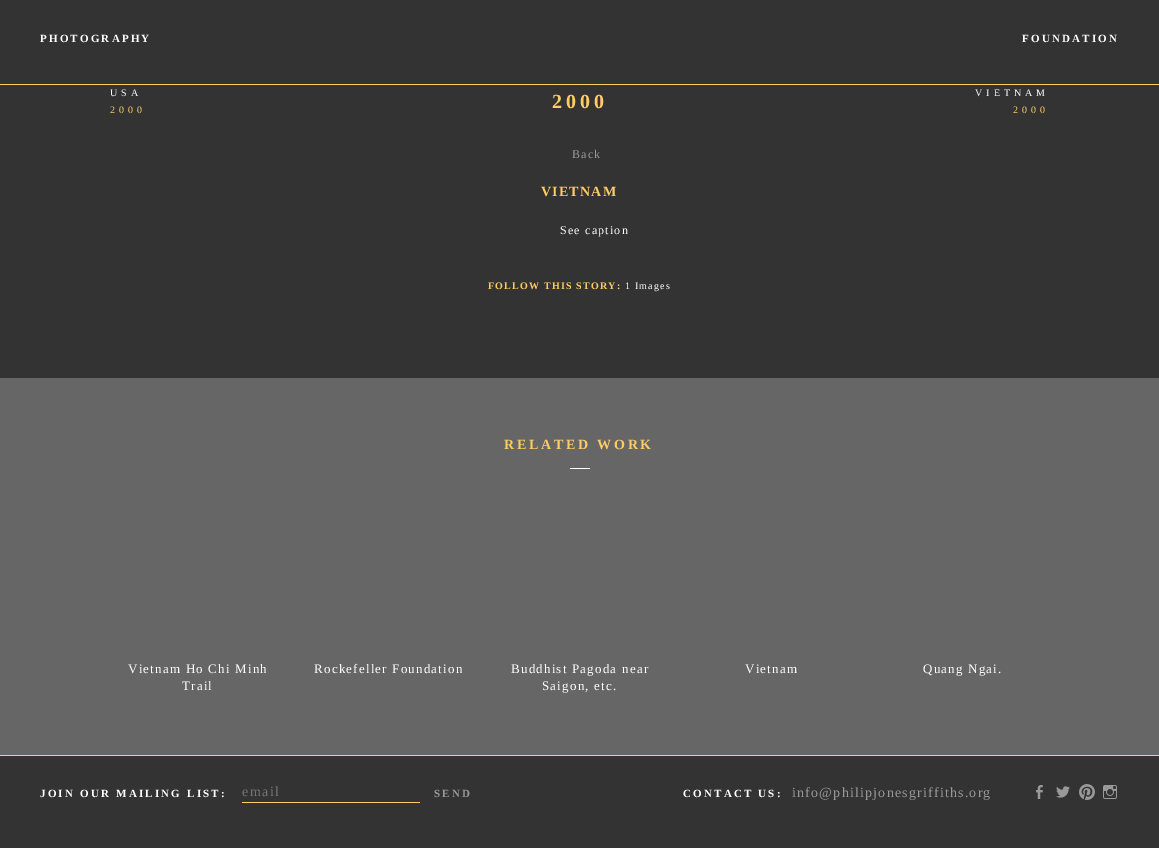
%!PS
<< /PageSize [1159 848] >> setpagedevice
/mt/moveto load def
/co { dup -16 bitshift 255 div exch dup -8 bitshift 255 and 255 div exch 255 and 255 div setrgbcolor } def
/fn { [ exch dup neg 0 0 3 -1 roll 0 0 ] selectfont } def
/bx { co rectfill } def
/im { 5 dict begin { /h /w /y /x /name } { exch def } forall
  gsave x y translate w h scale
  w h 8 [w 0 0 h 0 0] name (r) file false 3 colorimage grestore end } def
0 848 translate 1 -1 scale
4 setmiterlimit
0 0 1159 848 16#333333 bx
0 84 1159 1 16#FFCC66 bx
0 378 1159 377 16#666666 bx
570 468 20 1 16#FFFFFF bx
0 755 1159 1 16#FFCC66 bx
242 802 178 1 16#FFCC66 bx
(media/1.raw) 1036 785 7 14 im
(media/2.raw) 1056 786 14 12 im
(media/3.raw) 1079 784 16 16 im
(media/4.raw) 1103 785 14 14 im
/LiberationSerif-Bold 11 fn
16#FFFFFF co
40 42 mt 2.2 0 (PHOTOGRAPHY) ashow
1022 42 mt 2.2 0 (FOUNDATION) ashow
/LiberationSerif-Regular 10 fn
110 96 mt 4 0 (USA) ashow
16#FFCC66 co
110 113 mt 4 0 (2000) ashow
/LiberationSerif-Bold 20 fn
552 108 mt 4 0 (2000) ashow
/LiberationSerif-Regular 10 fn
16#FFFFFF co
975 96 mt 4 0 (VIETNAM) ashow
16#FFCC66 co
1013 113 mt 4 0 (2000) ashow
/LiberationSerif-Regular 12 fn
16#999999 co
572 158 mt 1.2 0 (Back) ashow
/LiberationSerif-Bold 14 fn
16#FFCC66 co
541 196 mt 1.2 0 (VIETNAM) ashow
/LiberationSerif-Regular 12 fn
16#FFFFFF co
560 234 mt 1.2 0 (See caption) ashow
/LiberationSerif-Bold 10 fn
16#FFCC66 co
488 289 mt 1.2 0 (FOLLOW THIS STORY:) ashow
/LiberationSerif-Regular 10 fn
16#FFFFFF co
625 289 mt 1.2 0 (1 Images) ashow
/LiberationSerif-Bold 14 fn
16#FFCC66 co
504 449 mt 2.75 0 (RELATED WORK) ashow
/LiberationSerif-Regular 13 fn
16#FFFFFF co
128 673 mt 1.2 0 (Vietnam Ho Chi Minh) ashow
182 690 mt 1.2 0 (Trail) ashow
314 673 mt 1.2 0 (Rockefeller Foundation) ashow
511 673 mt 1.2 0 (Buddhist Pagoda near) ashow
542 690 mt 1.2 0 (Saigon, etc.) ashow
745 673 mt 1.2 0 (Vietnam) ashow
923 673 mt 1.2 0 (Quang Ngai.) ashow
/LiberationSerif-Bold 11 fn
40 797 mt 2.2 0 (JOIN OUR MAILING LIST:) ashow
/LiberationSerif-Regular 14 fn
16#757575 co
242 796 mt 1.5 0 (email) ashow
/LiberationSerif-Bold 11 fn
16#999999 co
434 797 mt 2.2 0 (SEND) ashow
16#FFFFFF co
683 797 mt 2.2 0 (CONTACT US:) ashow
/LiberationSerif-Regular 14 fn
16#999999 co
792 797 mt 1.2 0 (info@philipjonesgriffiths.org) ashow
showpage
